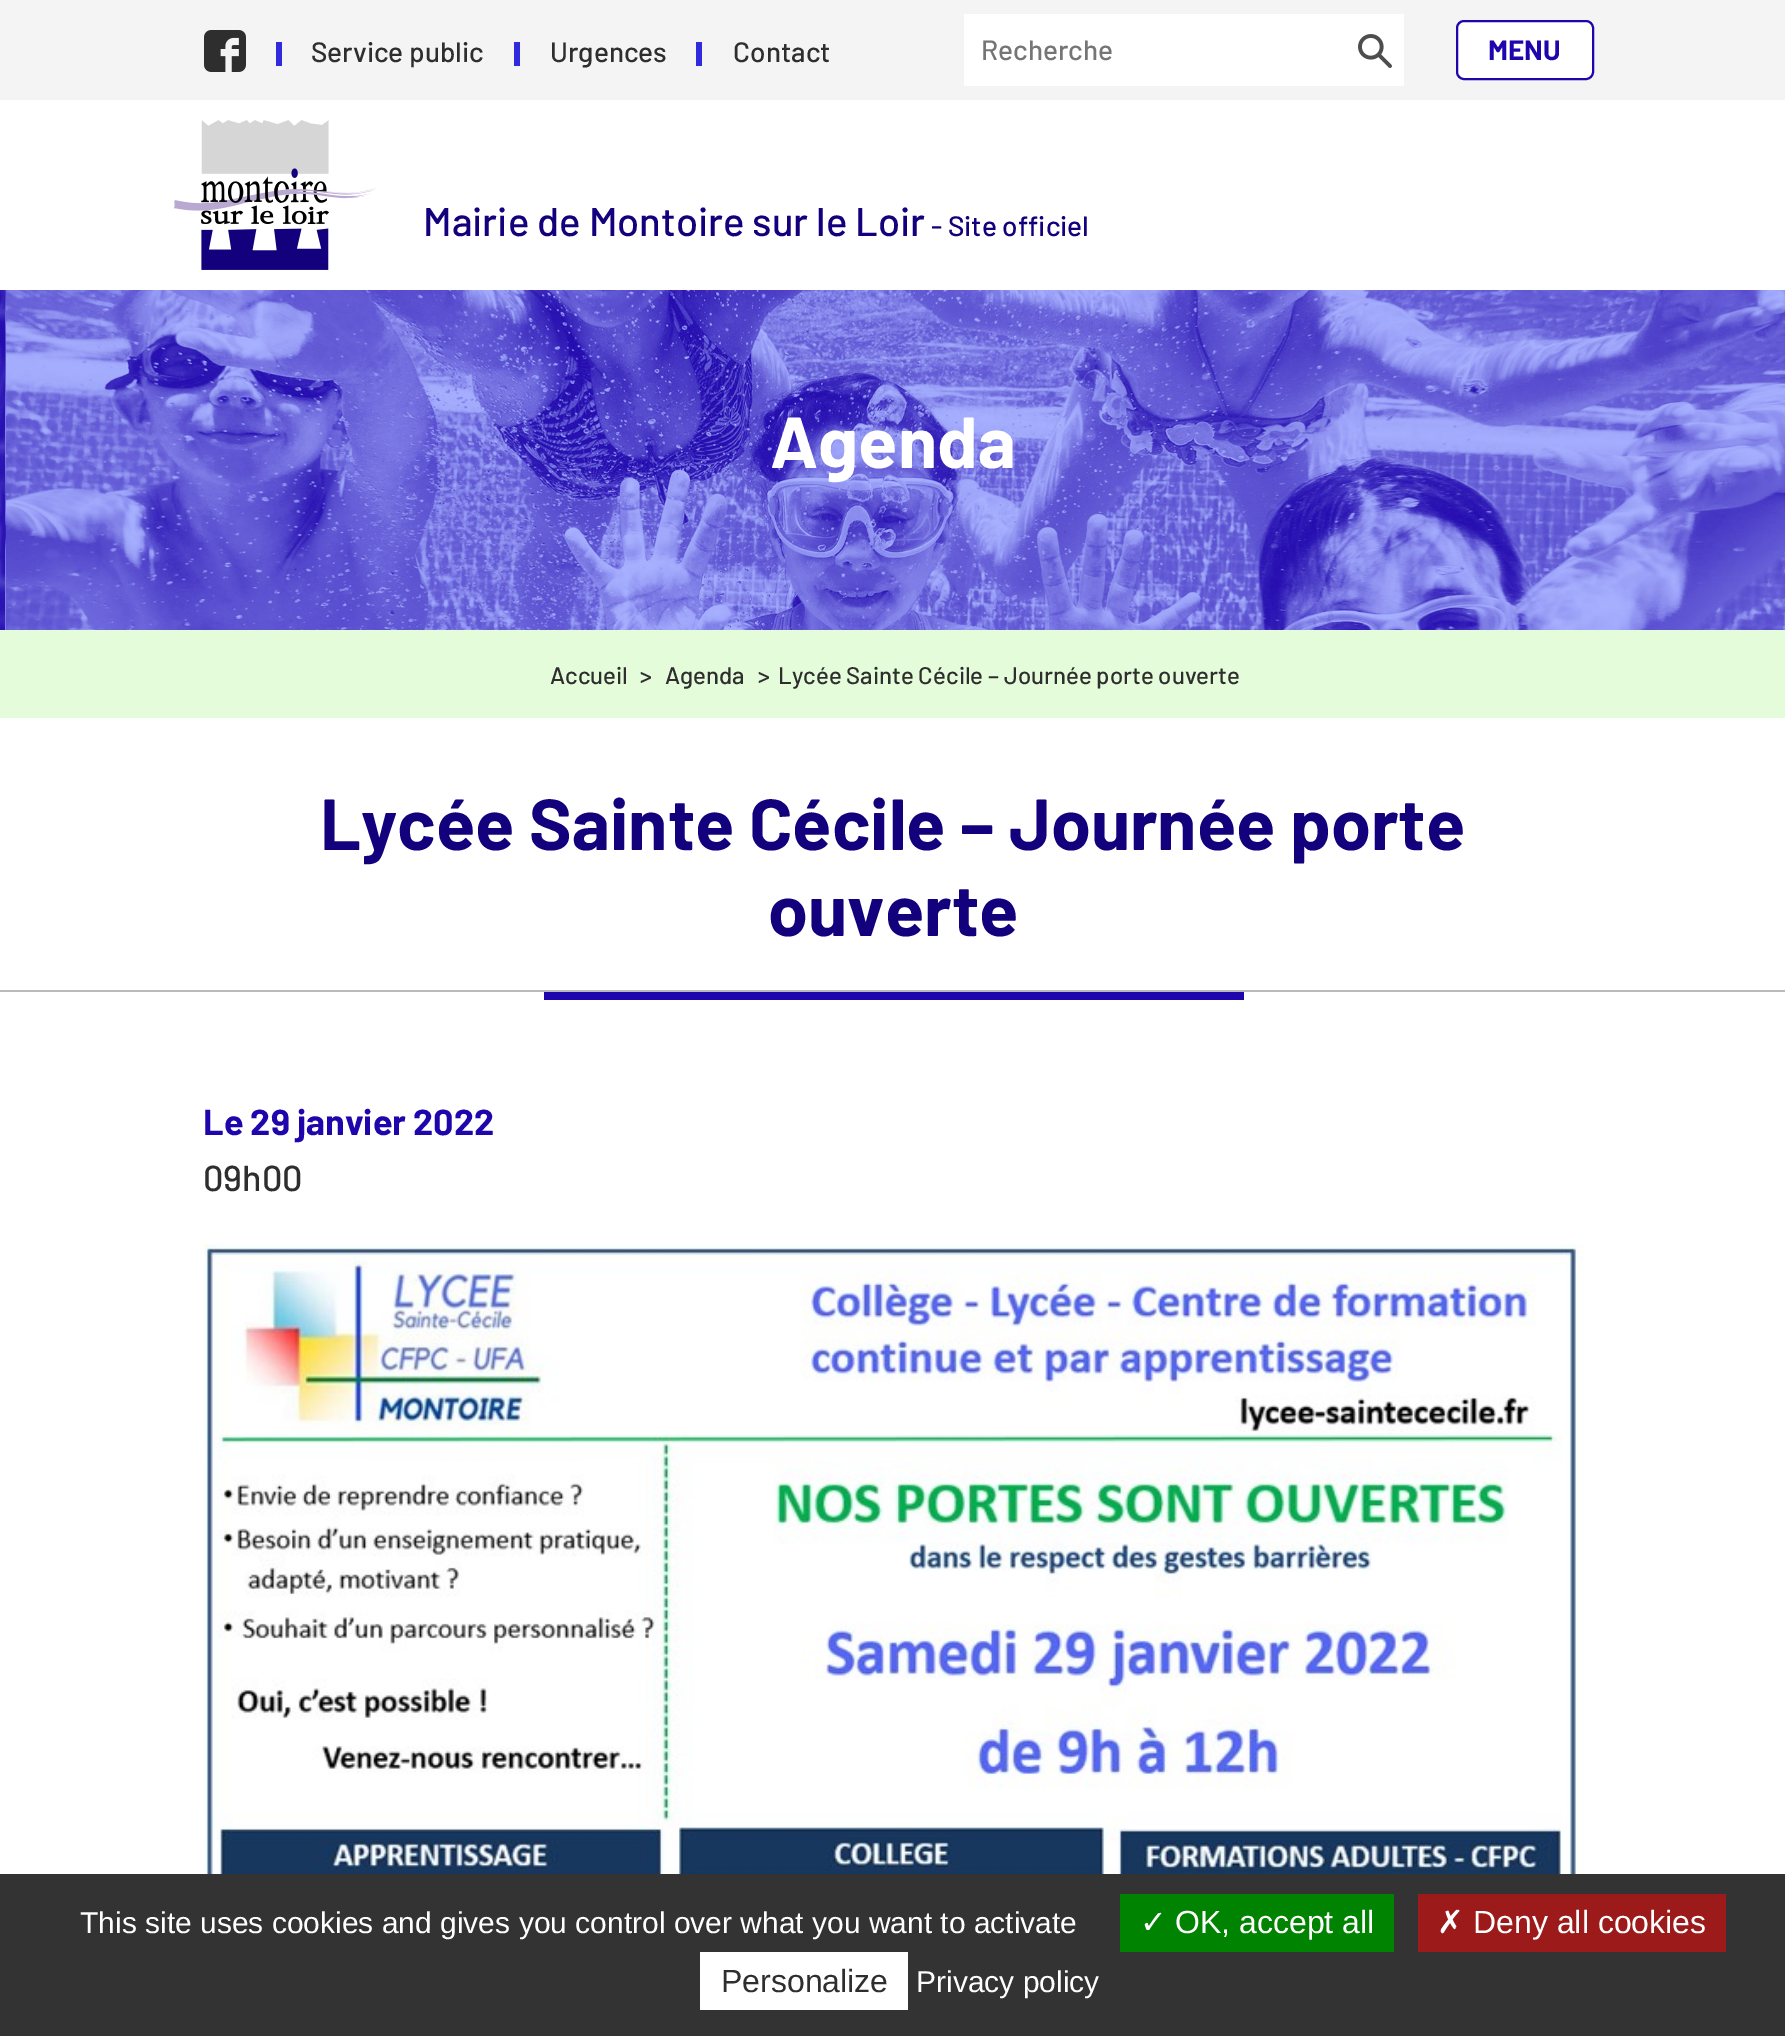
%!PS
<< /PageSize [1785 2036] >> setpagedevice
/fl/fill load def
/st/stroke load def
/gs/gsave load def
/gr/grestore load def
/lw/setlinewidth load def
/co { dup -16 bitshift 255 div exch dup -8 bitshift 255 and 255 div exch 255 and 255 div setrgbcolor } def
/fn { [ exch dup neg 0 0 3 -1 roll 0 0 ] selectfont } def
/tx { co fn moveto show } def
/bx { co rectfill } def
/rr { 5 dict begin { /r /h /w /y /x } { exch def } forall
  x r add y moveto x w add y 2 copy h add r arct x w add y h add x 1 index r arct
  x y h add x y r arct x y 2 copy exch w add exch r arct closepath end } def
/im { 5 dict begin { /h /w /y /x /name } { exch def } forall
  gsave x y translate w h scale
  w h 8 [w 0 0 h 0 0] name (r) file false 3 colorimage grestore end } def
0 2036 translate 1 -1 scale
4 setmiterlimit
0 0 1785 2036 16#FFFFFF bx
0 0 1785 100 16#F4F4F4 bx
(media/1.raw) 204 30 42 42 im
276 42 6 24 16#3029DD bx
514 42 6 24 16#3029DD bx
696 42 6 24 16#3029DD bx
964 14 440 72 16#FFFFFF bx
(media/2.raw) 1358 34 34 34 im
1457 21 136 58 7 rr gs fl gr
16#1F06AC co
2 lw
st
(media/3.raw) 174 120 203 150 im
(media/4.raw) 0 290 1785 340 im
0 630 1785 88 16#E5FCDB bx
0 990 1785 2 16#BABABA bx
544 992 700 8 16#1F06AC bx
(media/5.raw) 204 1244 1380 630 im
0 1874 1785 162 16#333333 bx
1120 1894 274 58 16#008300 bx
1418 1894 308 58 16#9C1A1A bx
700 1952 208 58 16#FFFFFF bx
(Service public) 311 62 /Barlow-Medium 28 16#2E2E2E tx
(Urgences) 550 62 /Barlow-Medium 28 16#2E2E2E tx
(Contact) 733 62 /Barlow-Medium 28 16#2E2E2E tx
(Recherche) 981 60 /Barlow-Medium 28 16#757575 tx
(MENU) 1488 60 /Barlow-Bold 28 16#1F06AC tx
(Mairie de Montoire sur le Loir) 423 236 /Barlow-Medium 40 16#13007C tx
(- Site officiel) 931 236 /Barlow-Medium 28 16#13007C tx
(Agenda) 770 468 /Barlow-Bold 72 16#FFFFFF tx
(Accueil) 550 684 /Barlow-Medium 24 16#2E2E2E tx
(>) 640 684 /Barlow-Medium 24 16#2E2E2E tx
(Agenda) 665 684 /Barlow-Medium 24 16#2E2E2E tx
(>) 758 684 /Barlow-Medium 24 16#2E2E2E tx
(Lycée Sainte Cécile – Journée porte ouverte) 778 684 /Barlow-Medium 24 16#2E2E2E tx
(Lycée Sainte Cécile – Journée porte) 320 850 /Barlow-Bold 72 16#13007C tx
(ouverte) 768 936 /Barlow-Bold 72 16#13007C tx
(Le 29 janvier 2022) 203 1135 /Barlow-Bold 36 16#1F06AC tx
(09h00) 203 1191 /Barlow-Medium 36 16#2E2E2E tx
(This site uses cookies and gives you control over what you want to activate) 80 1933 /LiberationSans-Regular 30 16#FFFFFF tx
(✓) 1140 1933 /DejaVuSans-Regular 32 16#FFFFFF tx
(OK, accept all) 1175 1933 /LiberationSans-Regular 32 16#FFFFFF tx
(✗) 1437 1933 /DejaVuSans-Regular 32 16#FFFFFF tx
(Deny all cookies) 1473 1933 /LiberationSans-Regular 32 16#FFFFFF tx
(Personalize) 721 1992 /LiberationSans-Regular 32 16#2E2E2E tx
(Privacy policy) 916 1992 /LiberationSans-Regular 30 16#FFFFFF tx
showpage
